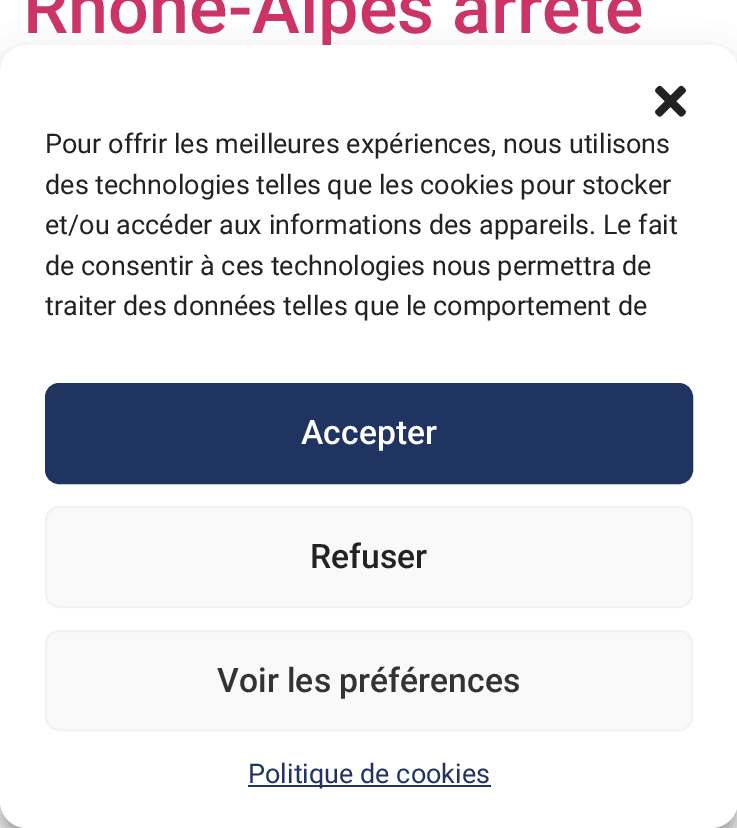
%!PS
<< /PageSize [737 828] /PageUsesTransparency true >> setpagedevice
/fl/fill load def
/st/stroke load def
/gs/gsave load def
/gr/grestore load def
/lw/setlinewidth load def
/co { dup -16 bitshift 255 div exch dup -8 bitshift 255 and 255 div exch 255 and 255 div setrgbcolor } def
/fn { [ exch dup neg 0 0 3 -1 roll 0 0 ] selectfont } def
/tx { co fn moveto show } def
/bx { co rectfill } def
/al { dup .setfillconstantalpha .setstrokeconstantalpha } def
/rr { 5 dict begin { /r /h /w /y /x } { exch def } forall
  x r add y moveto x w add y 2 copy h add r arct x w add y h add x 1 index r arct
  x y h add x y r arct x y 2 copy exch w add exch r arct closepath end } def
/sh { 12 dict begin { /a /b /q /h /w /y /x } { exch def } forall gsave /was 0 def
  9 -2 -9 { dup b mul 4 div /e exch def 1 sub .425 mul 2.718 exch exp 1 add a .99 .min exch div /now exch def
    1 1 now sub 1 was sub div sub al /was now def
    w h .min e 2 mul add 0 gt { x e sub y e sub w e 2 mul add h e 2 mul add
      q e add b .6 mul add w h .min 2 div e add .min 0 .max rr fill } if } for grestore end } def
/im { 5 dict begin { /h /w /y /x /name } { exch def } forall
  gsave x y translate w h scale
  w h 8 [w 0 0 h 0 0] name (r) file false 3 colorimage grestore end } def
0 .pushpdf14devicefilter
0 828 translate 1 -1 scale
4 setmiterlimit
0 0 737 828 16#FFFFFF bx
16#000000 co
0 59 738 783 27 7 .23 sh
0 68 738 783 27 22.5 .19 sh
(Rhône-Alpes arrêté) 23 33 /Roboto-Medium 72 16#CC3366 tx
16#FFFFFF co
0 45 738 783 27 rr fl
(media/1.raw) 655 85 31 32 im
(Pour offrir les meilleures expériences, nous utilisons) 45 153 /Roboto-Regular 27 16#222222 tx
(des technologies telles que les cookies pour stocker) 45 194 /Roboto-Regular 27 16#222222 tx
(et/ou accéder aux informations des appareils. Le fait) 45 234 /Roboto-Regular 27 16#222222 tx
(de consentir à ces technologies nous permettra de) 45 275 /Roboto-Regular 27 16#222222 tx
(traiter des données telles que le comportement de) 45 315 /Roboto-Regular 27 16#222222 tx
16#203462 co
46 384 646 99 13 rr gs fl gr
2 lw
st
(Accepter) 301 444 /Roboto-Medium 33.75 16#FFFFFF tx
16#F9F9F9 co
46 507 646 100 13 rr gs fl gr
16#F2F2F2 co
st
(Refuser) 310 568 /Roboto-Medium 33.75 16#222222 tx
16#F9F9F9 co
46 631 646 99 13 rr gs fl gr
16#F2F2F2 co
st
(Voir les préférences) 217 692 /Roboto-Medium 33.75 16#333333 tx
248 785 243 2 16#203462 bx
(Politique de cookies) 248 783 /Roboto-Regular 27 16#203462 tx
.poppdf14devicefilter showpage
